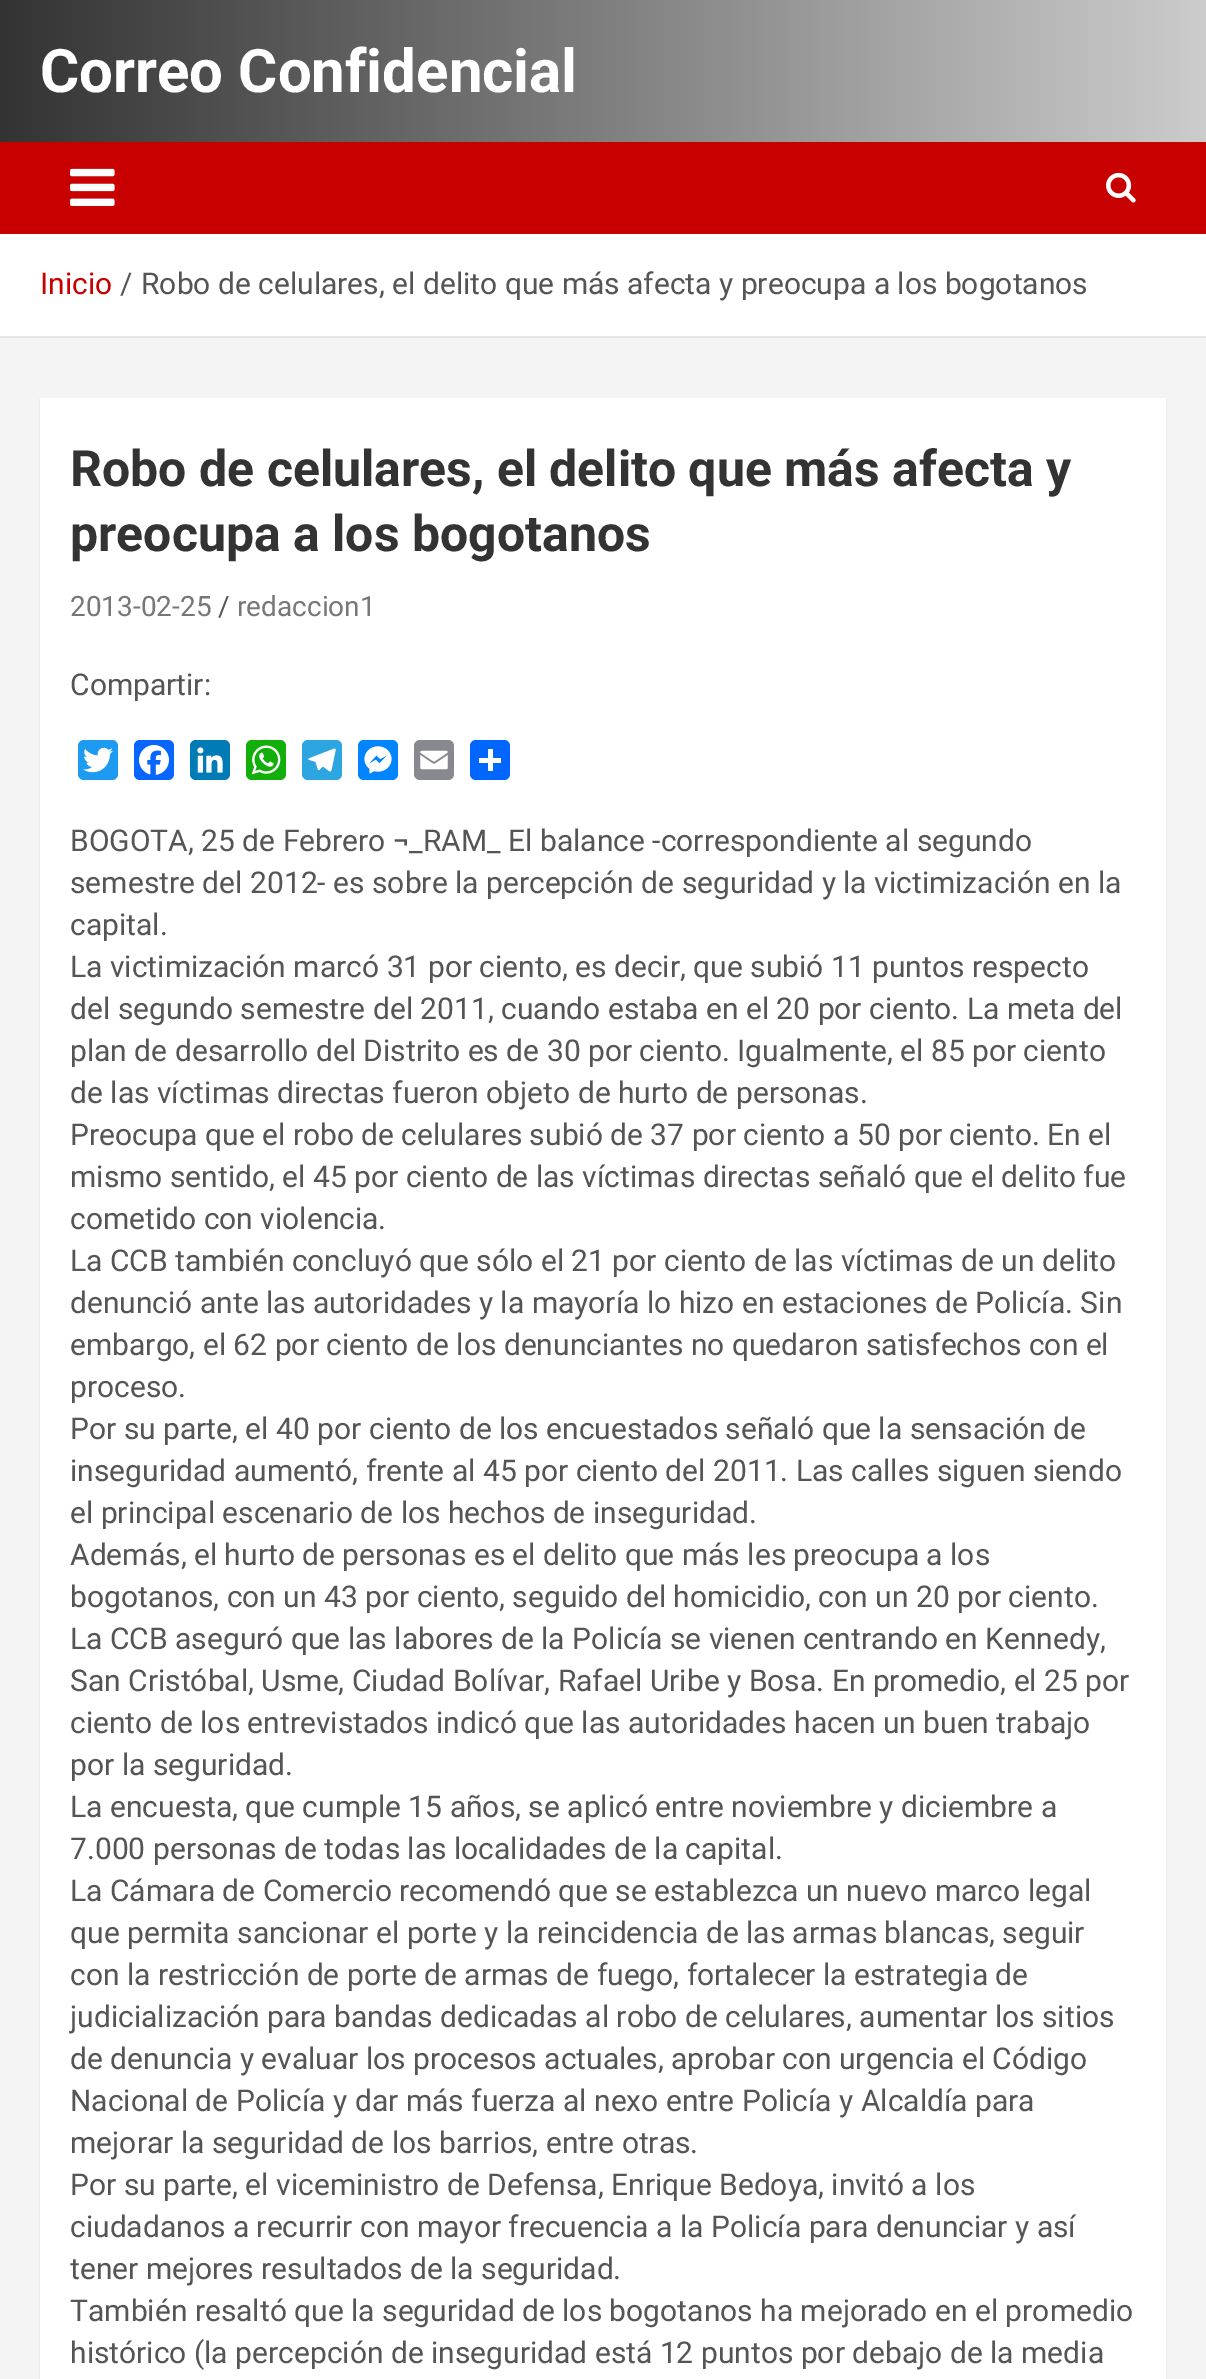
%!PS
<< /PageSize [1206 2379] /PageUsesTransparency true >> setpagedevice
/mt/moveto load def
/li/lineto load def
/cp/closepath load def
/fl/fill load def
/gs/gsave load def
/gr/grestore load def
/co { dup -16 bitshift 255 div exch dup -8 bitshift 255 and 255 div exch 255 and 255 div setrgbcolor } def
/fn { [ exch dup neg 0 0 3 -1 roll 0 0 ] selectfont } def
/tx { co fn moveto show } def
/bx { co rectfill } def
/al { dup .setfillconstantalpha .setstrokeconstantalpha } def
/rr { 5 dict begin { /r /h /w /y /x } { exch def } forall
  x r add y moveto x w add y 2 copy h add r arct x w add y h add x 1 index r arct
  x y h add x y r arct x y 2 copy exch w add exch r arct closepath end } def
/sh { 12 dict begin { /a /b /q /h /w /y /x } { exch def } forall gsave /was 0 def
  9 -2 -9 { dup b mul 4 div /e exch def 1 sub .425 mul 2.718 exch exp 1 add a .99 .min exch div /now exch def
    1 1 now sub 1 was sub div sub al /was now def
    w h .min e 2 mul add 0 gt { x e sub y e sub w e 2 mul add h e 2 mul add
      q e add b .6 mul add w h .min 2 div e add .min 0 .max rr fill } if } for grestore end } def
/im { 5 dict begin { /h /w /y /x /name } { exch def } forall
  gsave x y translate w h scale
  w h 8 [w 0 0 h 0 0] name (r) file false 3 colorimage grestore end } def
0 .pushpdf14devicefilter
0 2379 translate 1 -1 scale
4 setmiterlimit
0 0 1206 2379 16#F4F4F4 bx
gs 0 0 mt 1206 0 li 1206 142 li 0 142 li cp clip newpath
<< /ShadingType 2 /ColorSpace /DeviceRGB /Coords [0 71 1206 71] /Extend [true true] /Function << /FunctionType 2 /Domain [0 1] /C0 [.2 .2 .2] /C1 [.8 .8 .8] /N 1 >> >> shfill gr
0 142 1206 92 16#C80000 bx
(media/1.raw) 70 168 45 38 im
(media/2.raw) 1106 172 30 31 im
0 234 1206 102 16#FFFFFF bx
0 336 1206 2 16#E6E6E6 bx
16#000000 co
40 400 1126 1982 0 1 .1 sh
40 398 1126 1981 16#FFFFFF bx
16#1D9BF0 co
78 740 40 40 6 rr fl
(media/3.raw) 83 747 30 26 im
16#0866FF co
134 740 40 40 6 rr fl
(media/4.raw) 139 745 30 30 im
16#007BB5 co
190 740 40 40 6 rr fl
(media/5.raw) 197 747 26 26 im
16#12AF0A co
246 740 40 40 6 rr fl
(media/6.raw) 251 745 30 30 im
16#2CA5E0 co
302 740 40 40 6 rr fl
(media/7.raw) 308 748 28 24 im
16#0084FF co
358 740 40 40 6 rr fl
(media/8.raw) 364 746 28 28 im
16#888990 co
414 740 40 40 6 rr fl
(media/9.raw) 420 750 28 20 im
16#0166FF co
470 740 40 40 6 rr fl
488 749 5 22 16#FFFFFF bx
479 758 22 5 16#FFFFFF bx
(Correo Confidencial) 40 92 /Roboto-Bold 60 16#FFFFFF tx
(Inicio) 40 294 /Roboto-Regular 30 16#C80000 tx
(/) 120 294 /Roboto-Regular 30 16#555555 tx
(Robo de celulares, el delito que más afecta y preocupa a los bogotanos) 141 294 /Roboto-Regular 30 16#555555 tx
(Robo de celulares, el delito que más afecta y) 70 486 /Roboto-Bold 50 16#333333 tx
(preocupa a los bogotanos) 70 551 /Roboto-Bold 50 16#333333 tx
(2013-02-25) 70 616 /Roboto-Regular 28 16#777777 tx
(/) 218 616 /Roboto-Regular 28 16#555555 tx
(redaccion1) 237 616 /Roboto-Regular 28 16#777777 tx
(Compartir:) 70 695 /Roboto-Regular 30 16#555555 tx
(BOGOTA, 25 de Febrero ¬_RAM_ El balance -correspondiente al segundo) 70 851 /Roboto-Regular 30 16#555555 tx
(semestre del 2012- es sobre la percepción de seguridad y la victimización en la) 70 893 /Roboto-Regular 30 16#555555 tx
(capital.) 70 935 /Roboto-Regular 30 16#555555 tx
(La victimización marcó 31 por ciento, es decir, que subió 11 puntos respecto) 70 977 /Roboto-Regular 30 16#555555 tx
(del segundo semestre del 2011, cuando estaba en el 20 por ciento. La meta del) 70 1019 /Roboto-Regular 30 16#555555 tx
(plan de desarrollo del Distrito es de 30 por ciento. Igualmente, el 85 por ciento) 70 1061 /Roboto-Regular 30 16#555555 tx
(de las víctimas directas fueron objeto de hurto de personas.) 70 1103 /Roboto-Regular 30 16#555555 tx
(Preocupa que el robo de celulares subió de 37 por ciento a 50 por ciento. En el) 70 1145 /Roboto-Regular 30 16#555555 tx
(mismo sentido, el 45 por ciento de las víctimas directas señaló que el delito fue) 70 1187 /Roboto-Regular 30 16#555555 tx
(cometido con violencia.) 70 1229 /Roboto-Regular 30 16#555555 tx
(La CCB también concluyó que sólo el 21 por ciento de las víctimas de un delito) 70 1271 /Roboto-Regular 30 16#555555 tx
(denunció ante las autoridades y la mayoría lo hizo en estaciones de Policía. Sin) 70 1313 /Roboto-Regular 30 16#555555 tx
(embargo, el 62 por ciento de los denunciantes no quedaron satisfechos con el) 70 1355 /Roboto-Regular 30 16#555555 tx
(proceso.) 70 1397 /Roboto-Regular 30 16#555555 tx
(Por su parte, el 40 por ciento de los encuestados señaló que la sensación de) 70 1439 /Roboto-Regular 30 16#555555 tx
(inseguridad aumentó, frente al 45 por ciento del 2011. Las calles siguen siendo) 70 1481 /Roboto-Regular 30 16#555555 tx
(el principal escenario de los hechos de inseguridad.) 70 1523 /Roboto-Regular 30 16#555555 tx
(Además, el hurto de personas es el delito que más les preocupa a los) 70 1565 /Roboto-Regular 30 16#555555 tx
(bogotanos, con un 43 por ciento, seguido del homicidio, con un 20 por ciento.) 70 1607 /Roboto-Regular 30 16#555555 tx
(La CCB aseguró que las labores de la Policía se vienen centrando en Kennedy,) 70 1649 /Roboto-Regular 30 16#555555 tx
(San Cristóbal, Usme, Ciudad Bolívar, Rafael Uribe y Bosa. En promedio, el 25 por) 70 1691 /Roboto-Regular 30 16#555555 tx
(ciento de los entrevistados indicó que las autoridades hacen un buen trabajo) 70 1733 /Roboto-Regular 30 16#555555 tx
(por la seguridad.) 70 1775 /Roboto-Regular 30 16#555555 tx
(La encuesta, que cumple 15 años, se aplicó entre noviembre y diciembre a) 70 1817 /Roboto-Regular 30 16#555555 tx
(7.000 personas de todas las localidades de la capital.) 70 1859 /Roboto-Regular 30 16#555555 tx
(La Cámara de Comercio recomendó que se establezca un nuevo marco legal) 70 1901 /Roboto-Regular 30 16#555555 tx
(que permita sancionar el porte y la reincidencia de las armas blancas, seguir) 70 1943 /Roboto-Regular 30 16#555555 tx
(con la restricción de porte de armas de fuego, fortalecer la estrategia de) 70 1985 /Roboto-Regular 30 16#555555 tx
(judicialización para bandas dedicadas al robo de celulares, aumentar los sitios) 70 2027 /Roboto-Regular 30 16#555555 tx
(de denuncia y evaluar los procesos actuales, aprobar con urgencia el Código) 70 2069 /Roboto-Regular 30 16#555555 tx
(Nacional de Policía y dar más fuerza al nexo entre Policía y Alcaldía para) 70 2111 /Roboto-Regular 30 16#555555 tx
(mejorar la seguridad de los barrios, entre otras.) 70 2153 /Roboto-Regular 30 16#555555 tx
(Por su parte, el viceministro de Defensa, Enrique Bedoya, invitó a los) 70 2195 /Roboto-Regular 30 16#555555 tx
(ciudadanos a recurrir con mayor frecuencia a la Policía para denunciar y así) 70 2237 /Roboto-Regular 30 16#555555 tx
(tener mejores resultados de la seguridad.) 70 2279 /Roboto-Regular 30 16#555555 tx
(También resaltó que la seguridad de los bogotanos ha mejorado en el promedio) 70 2321 /Roboto-Regular 30 16#555555 tx
(histórico \(la percepción de inseguridad está 12 puntos por debajo de la media) 70 2363 /Roboto-Regular 30 16#555555 tx
.poppdf14devicefilter showpage
